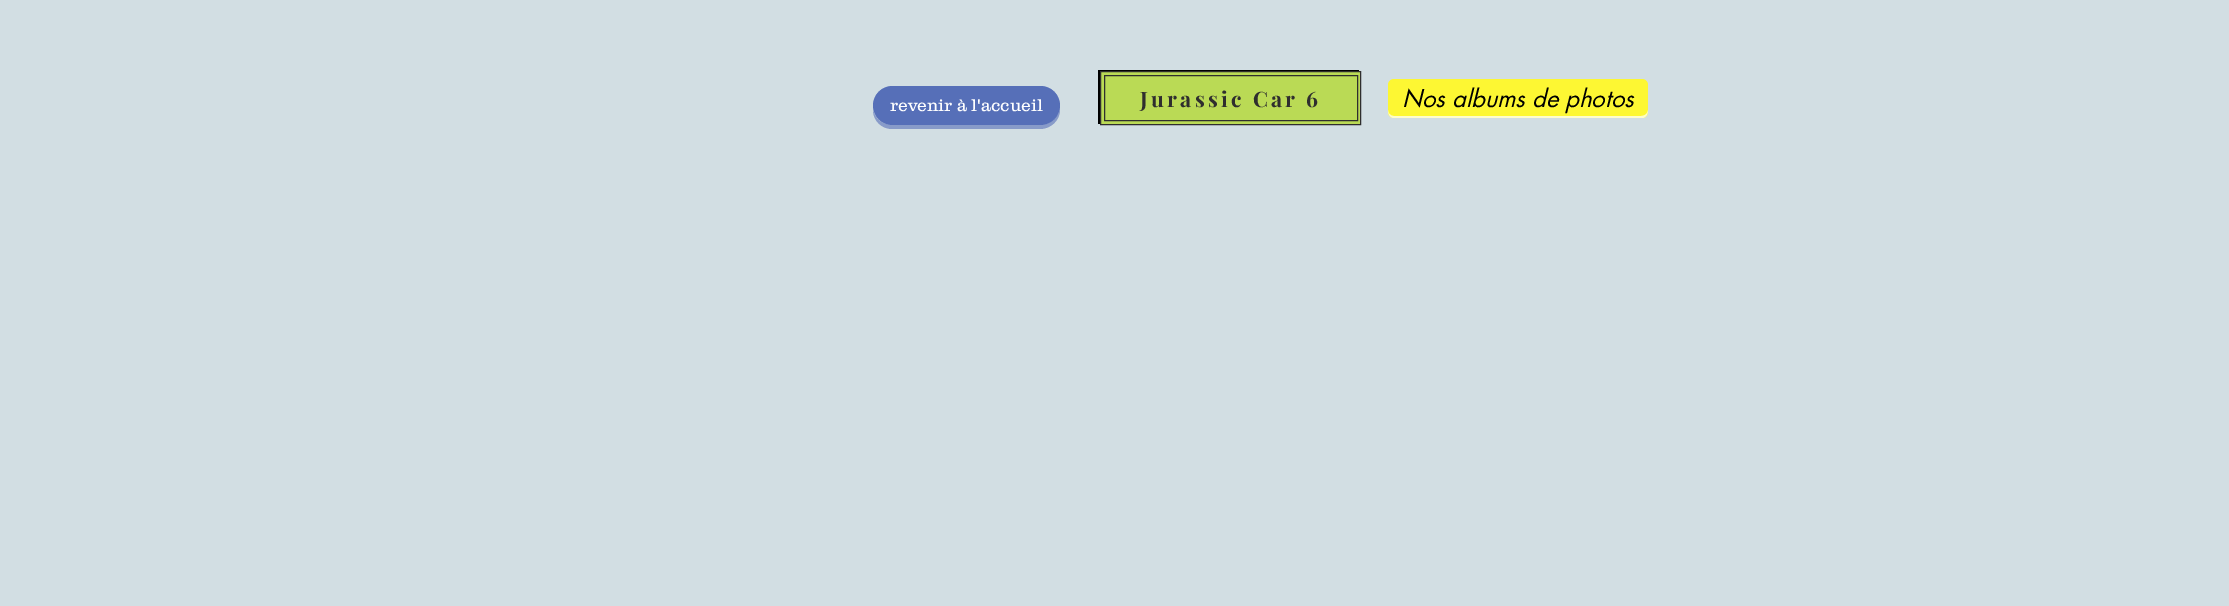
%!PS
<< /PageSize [2229 606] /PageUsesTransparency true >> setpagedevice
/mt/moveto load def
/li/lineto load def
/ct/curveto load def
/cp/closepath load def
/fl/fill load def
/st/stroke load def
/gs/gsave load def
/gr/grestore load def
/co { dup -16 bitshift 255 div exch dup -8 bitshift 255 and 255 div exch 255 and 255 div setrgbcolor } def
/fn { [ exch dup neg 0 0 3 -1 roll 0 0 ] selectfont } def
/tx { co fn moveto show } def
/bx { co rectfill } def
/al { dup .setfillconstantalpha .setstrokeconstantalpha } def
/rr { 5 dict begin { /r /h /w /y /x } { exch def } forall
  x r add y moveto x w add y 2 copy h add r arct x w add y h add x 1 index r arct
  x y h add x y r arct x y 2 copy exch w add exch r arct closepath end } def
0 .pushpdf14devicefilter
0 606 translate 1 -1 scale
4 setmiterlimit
0 0 2229 606 16#D2DEE3 bx
16#889BC9 co
873 110 mt 873 121 882 129 892 129 ct 1040 129 li 1051 129 1060 120 1060 110 ct 1060 108 li 1059 117 1051 125 1041 125 ct 892 125 li 883 125 875 119 873 110 ct cp fl
16#566FB8 co
873 86 187 39 19.5 rr fl
16#000000 co
1098 70 mt 1098 124 li 1100 124 li 1100 71 li 1359 71 li 1359 70 li cp fl
16#BADA55 co
1100.5 71.5 mt 1360.5 71.5 li 1360.5 124.5 li 1100.5 124.5 li cp gs fl gr
16#2F2E2E co
st
1104.5 75.5 253 45 rectstroke
16#FDF733 co
1388 79 260 39 6 rr fl
0.75 al
16#FFFFFF co
1388 110 mt 1388 113 1389 117 1393 118 ct 1643 118 li 1647 117 1648 113 1648 110 ct 1648 113 1645 116 1641 116 ct 1394 116 li 1390 116 1388 113 1388 110 ct cp fl
1 al
(revenir à l'accueil) 890 111 /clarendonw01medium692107-Light 17.5 16#FFFFFF tx
/PlayfairDisplay-Bold 21.25 fn
16#2F2E2E co
1140 107 mt 3.25 0 (Jurassic Car 6) ashow
(Nos albums de photos) 1402 107 /futura-Italic 23.75 16#000000 tx
.poppdf14devicefilter showpage
